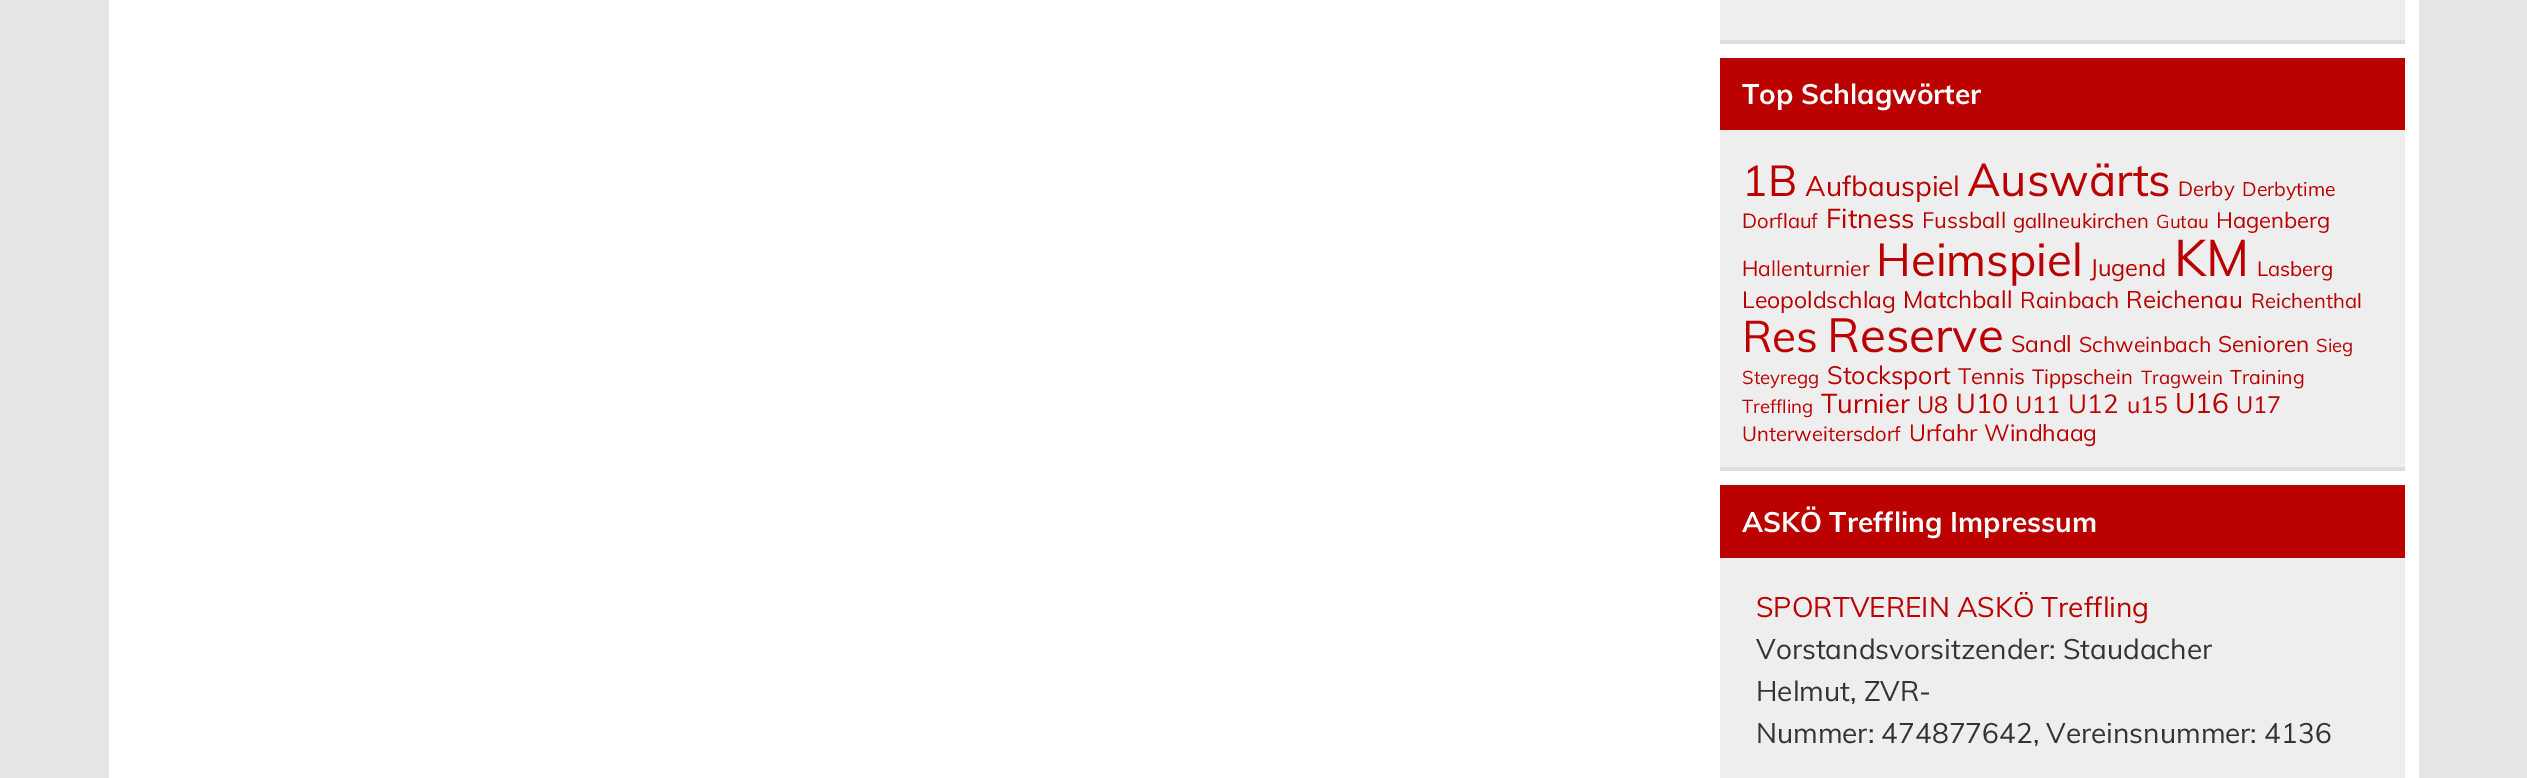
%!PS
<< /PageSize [2527 778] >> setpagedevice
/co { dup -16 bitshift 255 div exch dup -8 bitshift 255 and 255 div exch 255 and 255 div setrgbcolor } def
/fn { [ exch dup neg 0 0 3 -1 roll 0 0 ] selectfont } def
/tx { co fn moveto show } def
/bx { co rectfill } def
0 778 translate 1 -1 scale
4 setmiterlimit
0 0 2527 778 16#E5E5E5 bx
109 0 2310 778 16#FFFFFF bx
1720 0 685 40 16#EEEEEE bx
1720 40 685 4 16#DDDDDD bx
1720 130 685 337 16#EEEEEE bx
1720 467 685 4 16#DDDDDD bx
1720 58 685 72 16#BB0000 bx
1720 558 685 220 16#EEEEEE bx
1720 485 685 73 16#BB0000 bx
(Top Schlagwörter) 1742 104 /Muli-Bold 28 16#FFFFFF tx
(1B) 1742 196 /Muli-Regular 43 16#BB0000 tx
(Aufbauspiel) 1805 196 /Muli-Regular 28 16#BB0000 tx
(Auswärts) 1967 196 /Muli-Regular 45.5 16#BB0000 tx
(Derby) 2178 196 /Muli-Regular 20.25 16#BB0000 tx
(Derbytime) 2242 196 /Muli-Regular 19.5 16#BB0000 tx
(Dorflauf) 1742 228 /Muli-Regular 20.25 16#BB0000 tx
(Fitness) 1826 228 /Muli-Regular 27 16#BB0000 tx
(Fussball) 1922 228 /Muli-Regular 22 16#BB0000 tx
(gallneukirchen) 2013 228 /Muli-Regular 20.25 16#BB0000 tx
(Gutau) 2156 228 /Muli-Regular 18.5 16#BB0000 tx
(Hagenberg) 2216 228 /Muli-Regular 22 16#BB0000 tx
(Hallenturnier) 1742 276 /Muli-Regular 21.25 16#BB0000 tx
(Heimspiel) 1876 276 /Muli-Regular 45.5 16#BB0000 tx
(Jugend) 2090 276 /Muli-Regular 23.5 16#BB0000 tx
(KM) 2174 276 /Muli-Regular 51 16#BB0000 tx
(Lasberg) 2257 276 /Muli-Regular 20.25 16#BB0000 tx
(Leopoldschlag) 1742 308 /Muli-Regular 23 16#BB0000 tx
(Matchball) 1903 308 /Muli-Regular 24 16#BB0000 tx
(Rainbach) 2020 308 /Muli-Regular 22.5 16#BB0000 tx
(Reichenau) 2126 308 /Muli-Regular 24 16#BB0000 tx
(Reichenthal) 2251 308 /Muli-Regular 20.25 16#BB0000 tx
(Res) 1742 352 /Muli-Regular 44 16#BB0000 tx
(Reserve) 1827 352 /Muli-Regular 47.5 16#BB0000 tx
(Sandl) 2011 352 /Muli-Regular 23 16#BB0000 tx
(Schweinbach) 2079 352 /Muli-Regular 21.25 16#BB0000 tx
(Senioren) 2218 352 /Muli-Regular 22.5 16#BB0000 tx
(Sieg) 2316 352 /Muli-Regular 18.5 16#BB0000 tx
(Steyregg) 1742 384 /Muli-Regular 18.5 16#BB0000 tx
(Stocksport) 1827 384 /Muli-Regular 25 16#BB0000 tx
(Tennis) 1958 384 /Muli-Regular 22 16#BB0000 tx
(Tippschein) 2032 384 /Muli-Regular 20.25 16#BB0000 tx
(Tragwein) 2141 384 /Muli-Regular 18.5 16#BB0000 tx
(Training) 2230 384 /Muli-Regular 19.5 16#BB0000 tx
(Treffling) 1742 413 /Muli-Regular 18.5 16#BB0000 tx
(Turnier) 1821 413 /Muli-Regular 27 16#BB0000 tx
(U8) 1917 413 /Muli-Regular 23.5 16#BB0000 tx
(U10) 1956 413 /Muli-Regular 27 16#BB0000 tx
(U11) 2015 413 /Muli-Regular 23.5 16#BB0000 tx
(U12) 2068 413 /Muli-Regular 26 16#BB0000 tx
(u15) 2127 413 /Muli-Regular 23 16#BB0000 tx
(U16) 2175 413 /Muli-Regular 28 16#BB0000 tx
(U17) 2236 413 /Muli-Regular 23.5 16#BB0000 tx
(Unterweitersdorf) 1742 441 /Muli-Regular 20.25 16#BB0000 tx
(Urfahr) 1909 441 /Muli-Regular 23 16#BB0000 tx
(Windhaag) 1984 441 /Muli-Regular 23 16#BB0000 tx
(ASKÖ Treffling Impressum) 1742 532 /Muli-Bold 28 16#FFFFFF tx
(SPORTVEREIN ASKÖ Treffling) 1756 617 /Muli-Regular 28 16#BB0000 tx
(Vorstandsvorsitzender: Staudacher) 1756 659 /Muli-Regular 28 16#333333 tx
(Helmut, ZVR-) 1756 701 /Muli-Regular 28 16#333333 tx
(Nummer: 474877642, Vereinsnummer: 4136) 1756 743 /Muli-Regular 28 16#333333 tx
showpage
